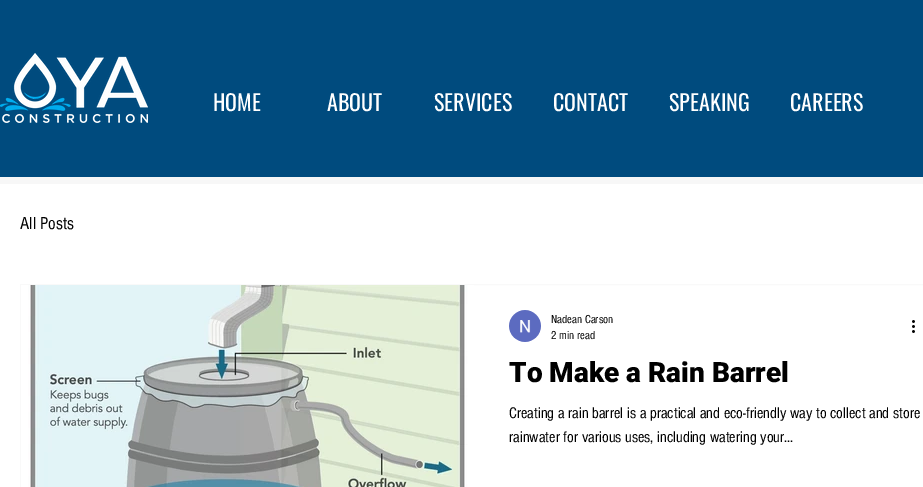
%!PS
<< /PageSize [923 487] >> setpagedevice
/co { dup -16 bitshift 255 div exch dup -8 bitshift 255 and 255 div exch 255 and 255 div setrgbcolor } def
/fn { [ exch dup neg 0 0 3 -1 roll 0 0 ] selectfont } def
/tx { co fn moveto show } def
/bx { co rectfill } def
/im { 5 dict begin { /h /w /y /x /name } { exch def } forall
  gsave x y translate w h scale
  w h 8 [w 0 0 h 0 0] name (r) file false 3 colorimage grestore end } def
0 487 translate 1 -1 scale
4 setmiterlimit
0 0 923 487 16#F7F7F7 bx
0 0 923 177 16#004B7E bx
(media/1.raw) 0 53 148 70 im
0 184 923 303 16#FFFFFF bx
16#F9F9F9 co
20.5 284.5 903 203 rectstroke
(media/2.raw) 21 285 453 202 im
(media/3.raw) 509 310 32 32 im
(media/4.raw) 912 320 3 13 im
(HOME) 213 111 /Oswald-Regular 22 16#FFFFFF tx
(ABOUT) 327 111 /Oswald-Regular 22 16#FFFFFF tx
(SERVICES) 434 111 /Oswald-Regular 22 16#FFFFFF tx
(CONTACT) 553 111 /Oswald-Regular 22 16#FFFFFF tx
(SPEAKING) 669 111 /Oswald-Regular 22 16#FFFFFF tx
(CAREERS) 790 111 /Oswald-Regular 22 16#FFFFFF tx
(All Posts) 20 229 /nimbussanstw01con-Regular 18 16#000000 tx
(Nadean Carson) 551 323 /nimbussanstw01con-Regular 12 16#000000 tx
(2 min read) 551 339 /nimbussanstw01con-Regular 12 16#000000 tx
(To Make a Rain Barrel) 509 382 /Roboto-Black 28 16#000000 tx
(Creating a rain barrel is a practical and eco-friendly way to collect and store) 509 418 /nimbussanstw01con-Regular 16 16#000000 tx
(rainwater for various uses, including watering your...) 509 442 /nimbussanstw01con-Regular 16 16#000000 tx
showpage
